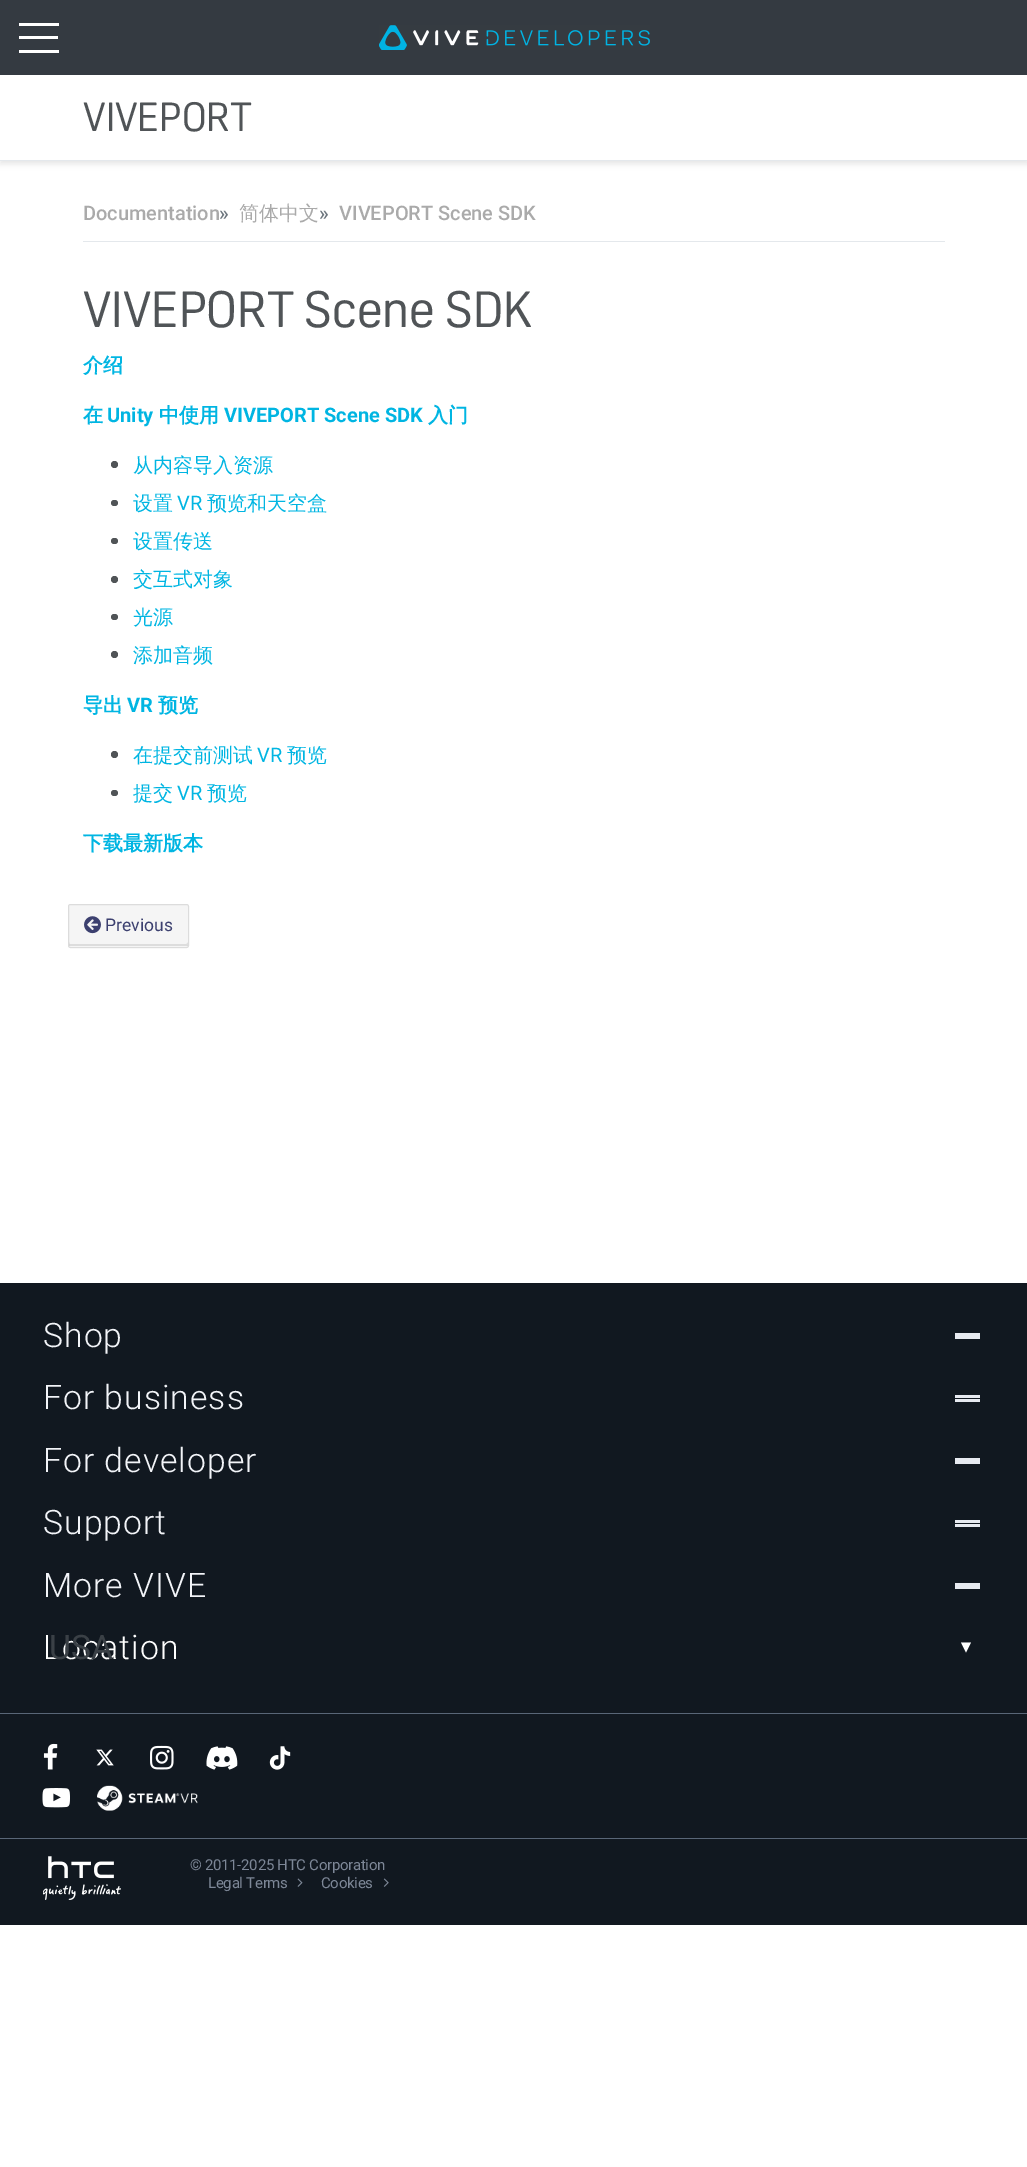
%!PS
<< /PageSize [1027 2167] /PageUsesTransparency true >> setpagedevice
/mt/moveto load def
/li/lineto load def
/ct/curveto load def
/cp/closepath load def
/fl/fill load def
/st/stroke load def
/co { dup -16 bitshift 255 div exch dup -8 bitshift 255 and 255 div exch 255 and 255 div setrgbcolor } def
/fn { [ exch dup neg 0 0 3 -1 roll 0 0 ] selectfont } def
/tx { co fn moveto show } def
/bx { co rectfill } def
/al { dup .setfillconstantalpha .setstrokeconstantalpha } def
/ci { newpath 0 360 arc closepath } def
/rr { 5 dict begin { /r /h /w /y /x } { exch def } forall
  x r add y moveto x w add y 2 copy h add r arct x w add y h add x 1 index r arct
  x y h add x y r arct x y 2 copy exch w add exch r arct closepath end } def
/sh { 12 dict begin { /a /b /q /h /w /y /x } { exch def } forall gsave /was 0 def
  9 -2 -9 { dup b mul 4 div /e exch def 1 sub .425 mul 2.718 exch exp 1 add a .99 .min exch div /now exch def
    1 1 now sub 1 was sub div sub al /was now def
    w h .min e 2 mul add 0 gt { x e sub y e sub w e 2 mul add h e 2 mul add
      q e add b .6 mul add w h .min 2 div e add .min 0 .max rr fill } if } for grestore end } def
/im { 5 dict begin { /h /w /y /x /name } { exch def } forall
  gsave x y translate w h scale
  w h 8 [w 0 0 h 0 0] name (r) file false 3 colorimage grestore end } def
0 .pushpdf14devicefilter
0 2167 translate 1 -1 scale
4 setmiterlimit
0 0 1027 2167 16#FFFFFF bx
16#000000 co
0 78 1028 86 0 3 .1 sh
0.85 al
0 0 1027 75 16#111820 bx
1 al
19 36 39 3 16#FFFFFF bx
19 23 40 3 16#FFFFFF bx
19 50 40 3 16#FFFFFF bx
(media/1.raw) 379 25 271 25 im
0 75 1027 85 16#FFFFFF bx
0 160 1027 1 16#E4E8EC bx
83 241 862 1 16#E4E8EC bx
16#505457 co
114.5 464.5 3.5 ci fl
111 500 7 6 3 rr fl
111 538 7 6 3 rr fl
114.5 579.5 3.5 ci fl
111 614 7 6 3 rr fl
114.5 654.5 3.5 ci fl
114.5 754.5 3.5 ci fl
111 790 7 6 3 rr fl
16#F5F5F5 co
68 904 121 44 2.5 rr fl
16#DDDDDD co
69 942 mt 69 945 li 69 946 69 946 70 946 ct 187 946 li 188 946 188 946 188 945 ct 188 942 li 188 943 187 944 186 944 ct 70 944 li 69 944 69 943 69 942 ct cp fl
0.1 al
16#000000 co
68.5 904.5 120 43 2 rr st
1 al
(media/2.raw) 84 916 17 18 im
0 1283 1027 642 16#111820 bx
955 1333 25 6 16#E7EAF0 bx
955 1395 25 3 16#E7EAF0 bx
955 1399 25 3 16#E7EAF0 bx
955 1458 25 6 16#E7EAF0 bx
955 1520 25 3 16#E7EAF0 bx
955 1524 25 3 16#E7EAF0 bx
955 1583 25 6 16#E7EAF0 bx
0 1838 1027 1 16#596677 bx
0 1713 1027 1 16#596677 bx
16#FFFFFF co
961 1642.5 mt 971 1642.5 li 966 1652.5 li cp fl
(media/3.raw) 43 1743 15 27 im
(media/4.raw) 96 1749 18 17 im
(media/5.raw) 150 1745 24 25 im
(media/6.raw) 206 1746 32 24 im
(media/7.raw) 269 1746 22 24 im
(media/8.raw) 42 1788 28 20 im
(media/9.raw) 97 1785 101 26 im
(media/10.raw) 43 1856 78 44 im
(media/11.raw) 297 1878 6 9 im
(media/12.raw) 383 1878 6 9 im
(VIVEPORT) 83 131 /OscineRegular-Regular 40 16#505457 tx
(Documentation) 83 220 /Roboto-Medium 20 16#AAAAAA tx
(») 219 220 /Roboto-Medium 20 16#6C757D tx
(简体中文) 239 220 /WenQuanYiZenHei-Medium 20 16#AAAAAA tx
(») 319 220 /Roboto-Medium 20 16#6C757D tx
(VIVEPORT Scene SDK) 339 220 /Roboto-Medium 20 16#AAAAAA tx
(VIVEPORT Scene SDK) 83 327 /OscineRegular-Regular 50 16#505457 tx
(介绍) 83 372 /WenQuanYiZenHei-Bold 20 16#00B5E2 tx
(在) 83 422 /WenQuanYiZenHei-Bold 20 16#00B5E2 tx
(Unity) 107 422 /Roboto-Bold 20 16#00B5E2 tx
(中使用) 159 422 /WenQuanYiZenHei-Bold 20 16#00B5E2 tx
(VIVEPORT Scene SDK) 224 422 /Roboto-Bold 20 16#00B5E2 tx
(入门) 428 422 /WenQuanYiZenHei-Bold 20 16#00B5E2 tx
(从内容导入资源) 133 472 /WenQuanYiZenHei-Medium 20 16#00B5E2 tx
(设置) 133 510 /WenQuanYiZenHei-Medium 20 16#00B5E2 tx
(VR) 177 510 /Roboto-Regular 20 16#00B5E2 tx
(预览和天空盒) 207 510 /WenQuanYiZenHei-Medium 20 16#00B5E2 tx
(设置传送) 133 548 /WenQuanYiZenHei-Medium 20 16#00B5E2 tx
(交互式对象) 133 586 /WenQuanYiZenHei-Medium 20 16#00B5E2 tx
(光源) 133 624 /WenQuanYiZenHei-Medium 20 16#00B5E2 tx
(添加音频) 133 662 /WenQuanYiZenHei-Medium 20 16#00B5E2 tx
(导出) 83 712 /WenQuanYiZenHei-Bold 20 16#00B5E2 tx
(VR) 127 712 /Roboto-Bold 20 16#00B5E2 tx
(预览) 158 712 /WenQuanYiZenHei-Bold 20 16#00B5E2 tx
(在提交前测试) 133 762 /WenQuanYiZenHei-Medium 20 16#00B5E2 tx
(VR) 257 762 /Roboto-Regular 20 16#00B5E2 tx
(预览) 287 762 /WenQuanYiZenHei-Medium 20 16#00B5E2 tx
(提交) 133 800 /WenQuanYiZenHei-Medium 20 16#00B5E2 tx
(VR) 177 800 /Roboto-Regular 20 16#00B5E2 tx
(预览) 207 800 /WenQuanYiZenHei-Medium 20 16#00B5E2 tx
(下载最新版本) 83 850 /WenQuanYiZenHei-Bold 20 16#00B5E2 tx
(Previous) 105 931 /Roboto-Regular 17.5 16#3C406F tx
/Roboto-Light 33.75 fn
16#F2F4F8 co
43 1347 mt 1 0 (Shop) ashow
43 1409 mt 1 0 (For business) ashow
43 1472 mt 1 0 (For developer) ashow
43 1534 mt 1 0 (Support) ashow
43 1597 mt 1 0 (More VIVE) ashow
16#FFFFFF co
43 1659 mt 1 0 (Location) ashow
(USA) 49 1659 /Roboto-Regular 33.75 16#3A4046 tx
/Roboto-Regular 15 fn
16#7D8797 co
190 1870 mt -.3 0 (© 2011-2025 HTC Corporation) ashow
208 1888 mt -.3 0 (Legal Terms) ashow
321 1888 mt -.3 0 (Cookies) ashow
.poppdf14devicefilter showpage
